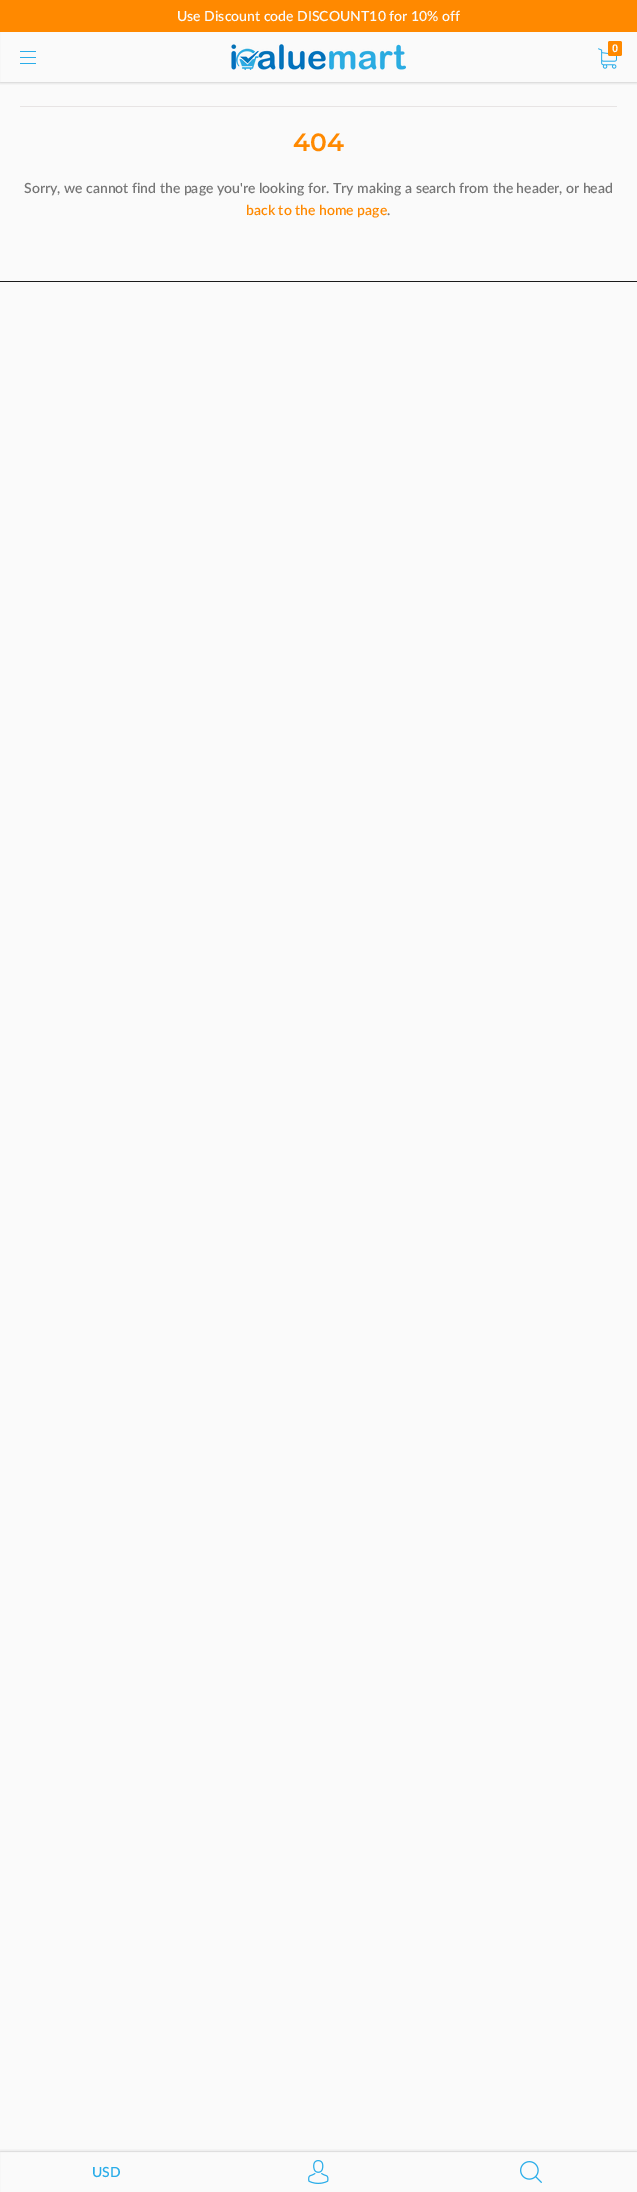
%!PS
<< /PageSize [637 2192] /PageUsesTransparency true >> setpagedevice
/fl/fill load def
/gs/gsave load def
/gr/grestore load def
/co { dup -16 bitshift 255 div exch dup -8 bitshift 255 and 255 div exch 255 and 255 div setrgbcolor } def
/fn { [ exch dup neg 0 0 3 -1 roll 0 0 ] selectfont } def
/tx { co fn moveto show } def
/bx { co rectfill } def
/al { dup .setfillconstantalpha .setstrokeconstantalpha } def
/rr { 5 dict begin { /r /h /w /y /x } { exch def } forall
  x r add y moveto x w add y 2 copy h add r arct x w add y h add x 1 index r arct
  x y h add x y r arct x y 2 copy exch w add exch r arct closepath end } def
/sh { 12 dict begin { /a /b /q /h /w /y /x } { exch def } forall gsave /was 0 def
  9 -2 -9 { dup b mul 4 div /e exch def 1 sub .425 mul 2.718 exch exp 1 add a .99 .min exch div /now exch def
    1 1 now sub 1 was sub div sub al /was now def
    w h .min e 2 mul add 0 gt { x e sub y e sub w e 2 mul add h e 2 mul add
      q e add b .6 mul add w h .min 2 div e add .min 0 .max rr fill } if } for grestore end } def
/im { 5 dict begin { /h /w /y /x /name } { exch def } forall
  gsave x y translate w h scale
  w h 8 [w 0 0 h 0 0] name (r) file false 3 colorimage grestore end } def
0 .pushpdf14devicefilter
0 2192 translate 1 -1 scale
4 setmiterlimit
0 0 637 2192 16#FAFAFA bx
16#EEEEEE co
-.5 -.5 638 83 rectstroke
gs
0 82 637 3 rectclip
16#000000 co
0 1 637 82 0 2 .1 sh
gr
0 0 637 32 16#FF8900 bx
(media/1.raw) 231 44 175 26 im
(media/2.raw) 598 48 19 21 im
608 41 14 15 2 rr fl
20 51 16 1 16#2AADE9 bx
20 57 16 1 16#2AADE9 bx
20 63 16 1 16#2AADE9 bx
20 106 597 1 16#E7E4E4 bx
0 281 637 1 16#1A1A1A bx
16#EEEEEE co
-.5 2151.5 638 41 rectstroke
gs
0 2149 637 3 rectclip
16#000000 co
0 2151 637 40 0 2 .1 sh
gr
(media/3.raw) 308 2160 21 24 im
(media/4.raw) 520 2161 22 22 im
(Use Discount code DISCOUNT10 for 10% off) 177 21 /Lato-SemiBold 14 16#FAFAFA tx
(0) 612 52 /LiberationSans-Bold 11 16#FAFAFA tx
(404) 293 151 /Montserrat-SemiBold 25 16#FF8900 tx
(Sorry, we cannot find the page you're looking for. Try making a search from the header, or head) 24 193 /Lato-SemiBold 14 16#767676 tx
(back to the home page) 246 215 /Lato-SemiBold 14 16#FF8900 tx
(.) 387 215 /Lato-SemiBold 14 16#767676 tx
(USD) 92 2177 /Lato-SemiBold 14 16#2AADE9 tx
.poppdf14devicefilter showpage
